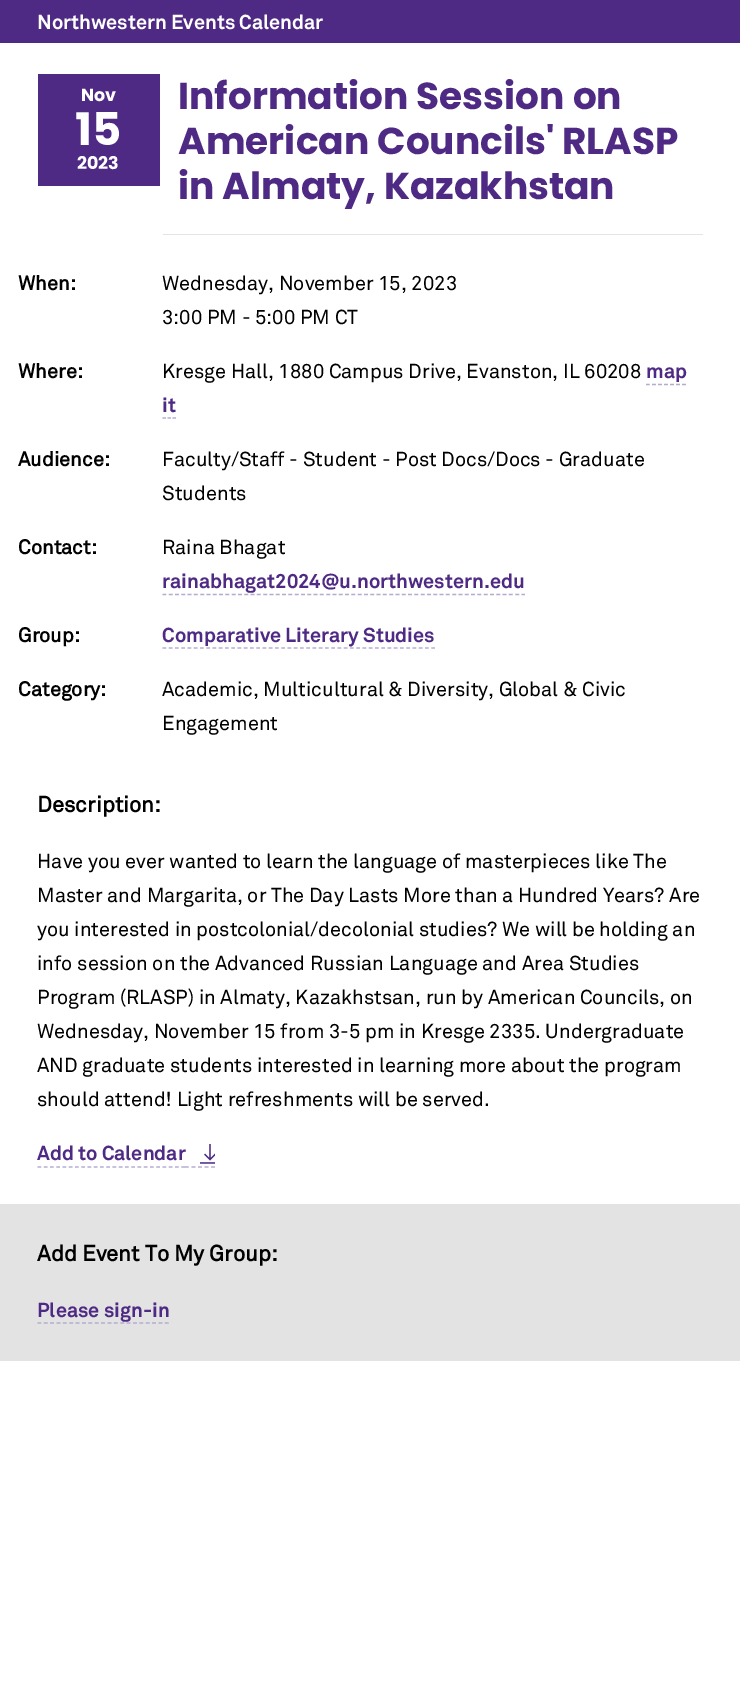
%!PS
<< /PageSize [740 1706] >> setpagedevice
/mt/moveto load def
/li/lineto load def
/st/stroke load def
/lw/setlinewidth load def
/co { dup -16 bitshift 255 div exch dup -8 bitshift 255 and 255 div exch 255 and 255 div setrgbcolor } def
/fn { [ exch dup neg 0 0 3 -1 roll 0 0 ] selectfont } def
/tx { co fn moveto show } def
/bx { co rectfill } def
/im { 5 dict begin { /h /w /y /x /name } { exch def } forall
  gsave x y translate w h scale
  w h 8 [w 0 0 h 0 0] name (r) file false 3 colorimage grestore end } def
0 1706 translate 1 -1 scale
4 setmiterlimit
0 0 740 1706 16#FFFFFF bx
0 0 740 43 16#4E2A84 bx
38 74 122 112 16#4E2A84 bx
163 234 540 1 16#E4E4E4 bx
16#B6ACD1 co
1.2 lw
[3.75 2.29] 0 setdash
646 384.5 mt 686 384.5 li st
[] 0 setdash
162.5 418 mt 166 418 li 167.5 418 mt 171 418 li 172.5 418 mt 176 418 li st
[3.75 2.55] 0 setdash
162.5 594.5 mt 525 594.5 li st
[3.75 2.5] 0 setdash
162.5 648 mt 435 648 li st
37.5 1167 mt 185 1167 li st
[3.75 2.81] 0 setdash
185 1167 mt 215 1167 li st
(media/1.raw) 200 1144 15 20 im
0 1204 740 157 16#E3E3E3 bx
16#B6ACD1 co
[3.75 2.62] 0 setdash
37.5 1323 mt 169 1323 li st
(Northwestern Events Calendar) 37 29 /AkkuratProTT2-Bold 20 16#FFFFFF tx
(Nov) 81 101 /Poppins-Bold 17.5 16#FFFFFF tx
(15) 75 145 /Poppins-Bold 45 16#FFFFFF tx
(2023) 77 169 /Poppins-Bold 17.5 16#FFFFFF tx
(Information Session on) 178 109 /Poppins-Bold 37.5 16#4E2A84 tx
(American Councils' RLASP) 178 154 /Poppins-Bold 37.5 16#4E2A84 tx
(in Almaty, Kazakhstan) 178 199 /Poppins-Bold 37.5 16#4E2A84 tx
(When:) 18 290 /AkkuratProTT-Bold 20 16#000000 tx
(Wednesday, November 15, 2023) 162 290 /AkkuratProTT-Regular 20 16#000000 tx
(3:00 PM - 5:00 PM CT) 162 324 /AkkuratProTT-Regular 20 16#000000 tx
(Where:) 18 378 /AkkuratProTT-Bold 20 16#000000 tx
(Kresge Hall, 1880 Campus Drive, Evanston, IL 60208) 162 378 /AkkuratProTT-Regular 20 16#000000 tx
(map) 646 378 /AkkuratProTT2-Bold 20 16#4E2A84 tx
(it) 162 412 /AkkuratProTT2-Bold 20 16#4E2A84 tx
(Audience:) 18 466 /AkkuratProTT-Bold 20 16#000000 tx
(Faculty/Staff - Student - Post Docs/Docs - Graduate) 162 466 /AkkuratProTT-Regular 20 16#000000 tx
(Students) 162 500 /AkkuratProTT-Regular 20 16#000000 tx
(Contact:) 18 554 /AkkuratProTT-Bold 20 16#000000 tx
(Raina Bhagat) 162 554 /AkkuratProTT-Regular 20 16#000000 tx
(rainabhagat2024@u.northwestern.edu) 162 588 /AkkuratProTT2-Bold 20 16#4E2A84 tx
(Group:) 18 642 /AkkuratProTT-Bold 20 16#000000 tx
(Comparative Literary Studies) 162 642 /AkkuratProTT2-Bold 20 16#4E2A84 tx
(Category:) 18 696 /AkkuratProTT-Bold 20 16#000000 tx
(Academic, Multicultural & Diversity, Global & Civic) 162 696 /AkkuratProTT-Regular 20 16#000000 tx
(Engagement) 162 730 /AkkuratProTT-Regular 20 16#000000 tx
(Description:) 37 812 /AkkuratProTT-Bold 22 16#000000 tx
(Have you ever wanted to learn the language of masterpieces like The) 37 868 /AkkuratProTT-Regular 20 16#000000 tx
(Master and Margarita, or The Day Lasts More than a Hundred Years? Are) 37 902 /AkkuratProTT-Regular 20 16#000000 tx
(you interested in postcolonial/decolonial studies? We will be holding an) 37 936 /AkkuratProTT-Regular 20 16#000000 tx
(info session on the Advanced Russian Language and Area Studies) 37 970 /AkkuratProTT-Regular 20 16#000000 tx
(Program \(RLASP\) in Almaty, Kazakhstsan, run by American Councils, on) 37 1004 /AkkuratProTT-Regular 20 16#000000 tx
(Wednesday, November 15 from 3-5 pm in Kresge 2335. Undergraduate) 37 1038 /AkkuratProTT-Regular 20 16#000000 tx
(AND graduate students interested in learning more about the program) 37 1072 /AkkuratProTT-Regular 20 16#000000 tx
(should attend! Light refreshments will be served.) 37 1106 /AkkuratProTT-Regular 20 16#000000 tx
(Add to Calendar) 37 1160 /AkkuratProTT2-Bold 20 16#4E2A84 tx
(Add Event To My Group:) 37 1261 /AkkuratProTT-Bold 22 16#000000 tx
(Please sign-in) 37 1317 /AkkuratProTT2-Bold 20 16#4E2A84 tx
showpage
